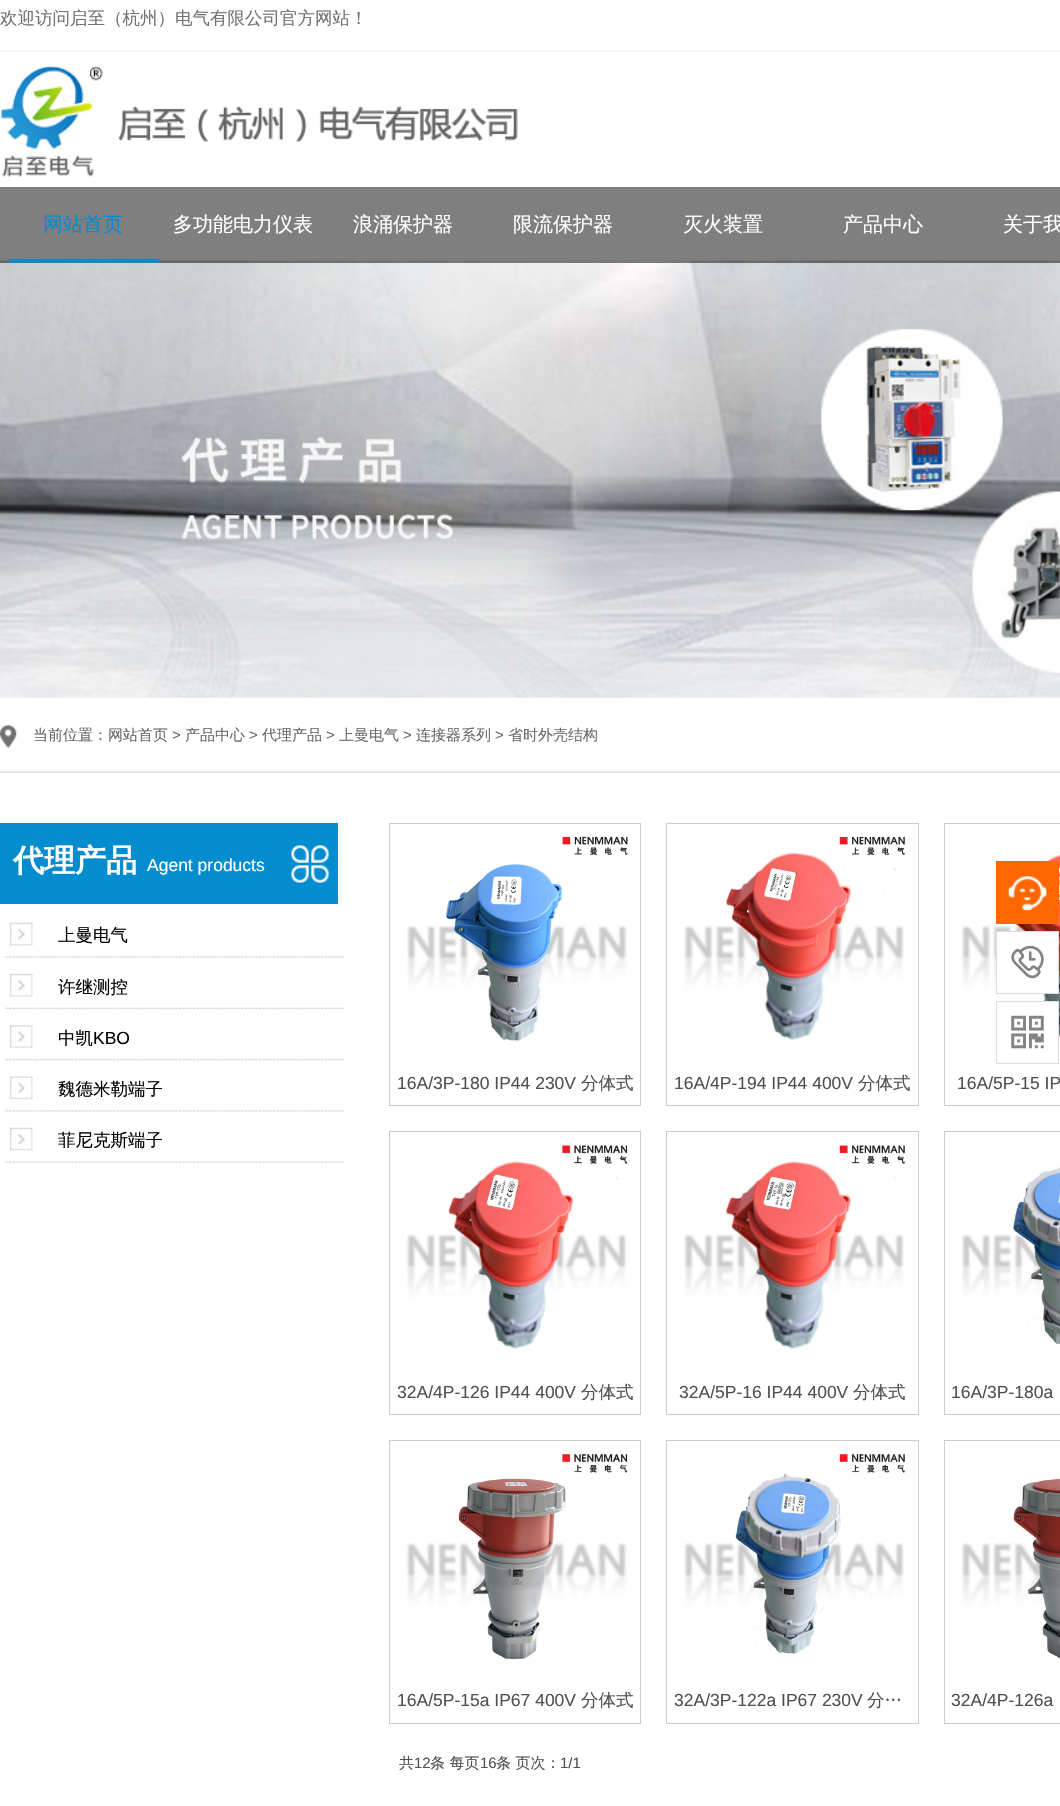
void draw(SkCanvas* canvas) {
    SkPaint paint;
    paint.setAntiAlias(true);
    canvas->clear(0xFFFFFFFF);
    SkFont font1(fontMgr->matchFamilyStyle("WenQuanYi Zen Hei", SkFontStyle(500, SkFontStyle::kNormal_Width, SkFontStyle::kUpright_Slant)), 17.5f);
    font1.setSubpixel(true);
    paint.setColor(0xFF727272);
    canvas->drawString("欢迎访问启至（杭州）电气有限公司官方网站！", 0, 24, font1, paint);
    canvas->drawImageRect(SkImages::DeferredFromEncodedData(SkData::MakeFromFileName("img1.png")), SkRect::MakeXYWH(0, 50, 1060, 2), SkSamplingOptions());
    canvas->drawImageRect(SkImages::DeferredFromEncodedData(SkData::MakeFromFileName("img2.png")), SkRect::MakeXYWH(0, 66, 518, 111), SkSamplingOptions());
    canvas->drawImageRect(SkImages::DeferredFromEncodedData(SkData::MakeFromFileName("img4.png")), SkRect::MakeXYWH(0, 260, 1060, 438), SkSamplingOptions());
    paint.setColor(0x80000000);
    canvas->drawRect(SkRect::MakeXYWH(0, 187, 1060, 76), paint);
    canvas->drawImageRect(SkImages::DeferredFromEncodedData(SkData::MakeFromFileName("img3.png")), SkRect::MakeXYWH(8, 258, 151, 5), SkSamplingOptions());
    SkFont font2(fontMgr->matchFamilyStyle("WenQuanYi Zen Hei", SkFontStyle(500, SkFontStyle::kNormal_Width, SkFontStyle::kUpright_Slant)), 20);
    font2.setSubpixel(true);
    paint.setColor(0xFF038CCE);
    canvas->drawString("网站首页", 43, 231, font2, paint);
    paint.setColor(0xFFFFFFFF);
    canvas->drawString("多功能电力仪表", 173, 231, font2, paint);
    canvas->drawString("浪涌保护器", 353, 231, font2, paint);
    canvas->drawString("限流保护器", 513, 231, font2, paint);
    canvas->drawString("灭火装置", 683, 231, font2, paint);
    canvas->drawString("产品中心", 843, 231, font2, paint);
    canvas->drawString("关于我", 1003, 231, font2, paint);
    canvas->drawImageRect(SkImages::DeferredFromEncodedData(SkData::MakeFromFileName("img5.png")), SkRect::MakeXYWH(0, 725, 17, 23), SkSamplingOptions());
    SkFont font3(fontMgr->matchFamilyStyle("WenQuanYi Zen Hei", SkFontStyle(500, SkFontStyle::kNormal_Width, SkFontStyle::kUpright_Slant)), 15);
    font3.setSubpixel(true);
    paint.setColor(0xFF696969);
    canvas->drawString("当前位置：网站首页", 33, 740, font3, paint);
    SkFont font4(fontMgr->matchFamilyStyle("Liberation Sans", SkFontStyle::Normal()), 15);
    font4.setSubpixel(true);
    canvas->drawString(">", 172, 740, font4, paint);
    canvas->drawString("产品中心", 185, 740, font3, paint);
    canvas->drawString(">", 249, 740, font4, paint);
    canvas->drawString("代理产品", 262, 740, font3, paint);
    canvas->drawString(">", 326, 740, font4, paint);
    canvas->drawString("上曼电气", 339, 740, font3, paint);
    canvas->drawString(">", 403, 740, font4, paint);
    canvas->drawString("连接器系列", 416, 740, font3, paint);
    canvas->drawString(">", 495, 740, font4, paint);
    canvas->drawString("省时外壳结构", 508, 740, font3, paint);
    canvas->drawImageRect(SkImages::DeferredFromEncodedData(SkData::MakeFromFileName("img6.png")), SkRect::MakeXYWH(0, 771, 1060, 2), SkSamplingOptions());
    paint.setColor(0xFF038CCE);
    canvas->drawRect(SkRect::MakeXYWH(0, 823, 338, 81), paint);
    SkFont font5(fontMgr->matchFamilyStyle("WenQuanYi Zen Hei", SkFontStyle::Bold()), 31);
    font5.setSubpixel(true);
    paint.setColor(0xFFFFFFFF);
    canvas->drawString("代理产品", 13, 871, font5, paint);
    SkFont font6(fontMgr->matchFamilyStyle("Liberation Sans", SkFontStyle::Normal()), 17.5f);
    font6.setSubpixel(true);
    canvas->drawString("Agent products", 147, 871, font6, paint);
    canvas->drawImageRect(SkImages::DeferredFromEncodedData(SkData::MakeFromFileName("img7.png")), SkRect::MakeXYWH(291, 845, 38, 38), SkSamplingOptions());
    canvas->drawImageRect(SkImages::DeferredFromEncodedData(SkData::MakeFromFileName("img8.png")), SkRect::MakeXYWH(5, 922, 339, 36), SkSamplingOptions());
    paint.setColor(0xFF000000);
    canvas->drawString("上曼电气", 58, 941, font1, paint);
    canvas->drawImageRect(SkImages::DeferredFromEncodedData(SkData::MakeFromFileName("img9.png")), SkRect::MakeXYWH(5, 973, 339, 37), SkSamplingOptions());
    canvas->drawString("许继测控", 58, 993, font1, paint);
    canvas->drawImageRect(SkImages::DeferredFromEncodedData(SkData::MakeFromFileName("img10.png")), SkRect::MakeXYWH(5, 1025, 339, 36), SkSamplingOptions());
    canvas->drawString("中凯", 58, 1044, font1, paint);
    canvas->drawString("KBO", 93, 1044, font6, paint);
    canvas->drawImageRect(SkImages::DeferredFromEncodedData(SkData::MakeFromFileName("img11.png")), SkRect::MakeXYWH(5, 1076, 339, 36), SkSamplingOptions());
    canvas->drawString("魏德米勒端子", 58, 1095, font1, paint);
    canvas->drawImageRect(SkImages::DeferredFromEncodedData(SkData::MakeFromFileName("img12.png")), SkRect::MakeXYWH(5, 1127, 339, 36), SkSamplingOptions());
    canvas->drawString("菲尼克斯端子", 58, 1146, font1, paint);
    paint.setStyle(SkPaint::kStroke_Style);
    paint.setStrokeWidth(1);
    paint.setColor(0xFFCCCCCC);
    canvas->drawRect(SkRect::MakeXYWH(389.5f, 823.5f, 251, 282), paint);
    canvas->drawImageRect(SkImages::DeferredFromEncodedData(SkData::MakeFromFileName("img13.png")), SkRect::MakeXYWH(407, 836, 221, 205), SkSamplingOptions());
    paint.setStyle(SkPaint::kFill_Style);
    paint.setColor(0xFF505050);
    canvas->drawString("16A/3P-180 IP44 230V", 397, 1089, font6, paint);
    canvas->drawString("分体式", 581, 1089, font1, paint);
    paint.setStyle(SkPaint::kStroke_Style);
    paint.setColor(0xFFCCCCCC);
    canvas->drawRect(SkRect::MakeXYWH(666.5f, 823.5f, 252, 282), paint);
    canvas->drawImageRect(SkImages::DeferredFromEncodedData(SkData::MakeFromFileName("img14.png")), SkRect::MakeXYWH(684, 836, 221, 205), SkSamplingOptions());
    paint.setStyle(SkPaint::kFill_Style);
    paint.setColor(0xFF505050);
    canvas->drawString("16A/4P-194 IP44 400V", 674, 1089, font6, paint);
    canvas->drawString("分体式", 858, 1089, font1, paint);
    paint.setStyle(SkPaint::kStroke_Style);
    paint.setColor(0xFFCCCCCC);
    canvas->drawRect(SkRect::MakeXYWH(944.5f, 823.5f, 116, 282), paint);
    canvas->drawImageRect(SkImages::DeferredFromEncodedData(SkData::MakeFromFileName("img15.png")), SkRect::MakeXYWH(961, 854, 99, 184), SkSamplingOptions());
    paint.setStyle(SkPaint::kFill_Style);
    paint.setColor(0xFF505050);
    canvas->drawString("16A/5P-15 IP", 957, 1089, font6, paint);
    paint.setStyle(SkPaint::kStroke_Style);
    paint.setColor(0xFFCCCCCC);
    canvas->drawRect(SkRect::MakeXYWH(389.5f, 1131.5f, 251, 283), paint);
    canvas->drawImageRect(SkImages::DeferredFromEncodedData(SkData::MakeFromFileName("img16.png")), SkRect::MakeXYWH(406, 1145, 222, 205), SkSamplingOptions());
    paint.setStyle(SkPaint::kFill_Style);
    paint.setColor(0xFF505050);
    canvas->drawString("32A/4P-126 IP44 400V", 397, 1398, font6, paint);
    canvas->drawString("分体式", 581, 1398, font1, paint);
    paint.setStyle(SkPaint::kStroke_Style);
    paint.setColor(0xFFCCCCCC);
    canvas->drawRect(SkRect::MakeXYWH(666.5f, 1131.5f, 252, 283), paint);
    canvas->drawImageRect(SkImages::DeferredFromEncodedData(SkData::MakeFromFileName("img17.png")), SkRect::MakeXYWH(684, 1145, 221, 205), SkSamplingOptions());
    paint.setStyle(SkPaint::kFill_Style);
    paint.setColor(0xFF505050);
    canvas->drawString("32A/5P-16 IP44 400V", 679, 1398, font6, paint);
    canvas->drawString("分体式", 853, 1398, font1, paint);
    paint.setStyle(SkPaint::kStroke_Style);
    paint.setColor(0xFFCCCCCC);
    canvas->drawRect(SkRect::MakeXYWH(944.5f, 1131.5f, 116, 283), paint);
    canvas->drawImageRect(SkImages::DeferredFromEncodedData(SkData::MakeFromFileName("img18.png")), SkRect::MakeXYWH(961, 1167, 99, 178), SkSamplingOptions());
    paint.setStyle(SkPaint::kFill_Style);
    paint.setColor(0xFF505050);
    canvas->drawString("16A/3P-180a", 951, 1398, font6, paint);
    paint.setStyle(SkPaint::kStroke_Style);
    paint.setColor(0xFFCCCCCC);
    canvas->drawRect(SkRect::MakeXYWH(389.5f, 1440.5f, 251, 283), paint);
    canvas->drawImageRect(SkImages::DeferredFromEncodedData(SkData::MakeFromFileName("img19.png")), SkRect::MakeXYWH(406, 1454, 222, 206), SkSamplingOptions());
    paint.setStyle(SkPaint::kFill_Style);
    paint.setColor(0xFF505050);
    canvas->drawString("16A/5P-15a IP67 400V", 397, 1706, font6, paint);
    canvas->drawString("分体式", 581, 1706, font1, paint);
    paint.setStyle(SkPaint::kStroke_Style);
    paint.setColor(0xFFCCCCCC);
    canvas->drawRect(SkRect::MakeXYWH(666.5f, 1440.5f, 252, 283), paint);
    canvas->drawImageRect(SkImages::DeferredFromEncodedData(SkData::MakeFromFileName("img20.png")), SkRect::MakeXYWH(684, 1454, 221, 200), SkSamplingOptions());
    paint.setStyle(SkPaint::kFill_Style);
    paint.setColor(0xFF505050);
    canvas->drawString("32A/3P-122a IP67 230V", 674, 1706, font6, paint);
    canvas->drawString("分…", 867, 1706, font1, paint);
    paint.setStyle(SkPaint::kStroke_Style);
    paint.setColor(0xFFCCCCCC);
    canvas->drawRect(SkRect::MakeXYWH(944.5f, 1440.5f, 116, 283), paint);
    canvas->drawImageRect(SkImages::DeferredFromEncodedData(SkData::MakeFromFileName("img21.png")), SkRect::MakeXYWH(961, 1478, 99, 181), SkSamplingOptions());
    paint.setStyle(SkPaint::kFill_Style);
    paint.setColor(0xFF505050);
    canvas->drawString("32A/4P-126a", 951, 1706, font6, paint);
    canvas->drawString("共", 399, 1768, font3, paint);
    canvas->drawString("12", 414, 1768, font4, paint);
    canvas->drawString("条 每页", 430, 1768, font3, paint);
    canvas->drawString("16", 480, 1768, font4, paint);
    canvas->drawString("条 页次：", 496, 1768, font3, paint);
    canvas->drawString("1/1", 560, 1768, font4, paint);
    paint.setColor(0xFFFF6800);
    canvas->drawRect(SkRect::MakeXYWH(996, 861, 63, 63), paint);
    canvas->drawImageRect(SkImages::DeferredFromEncodedData(SkData::MakeFromFileName("img22.png")), SkRect::MakeXYWH(1008, 876, 39, 35), SkSamplingOptions());
    paint.setColor(0xFFFFFFFF);
    canvas->drawRect(SkRect::MakeXYWH(996.5f, 931.5f, 62, 62), paint);
    paint.setStyle(SkPaint::kStroke_Style);
    paint.setColor(0xFFDDDDDD);
    canvas->drawRect(SkRect::MakeXYWH(996.5f, 931.5f, 62, 62), paint);
    canvas->drawImageRect(SkImages::DeferredFromEncodedData(SkData::MakeFromFileName("img23.png")), SkRect::MakeXYWH(1011, 945, 33, 34), SkSamplingOptions());
    paint.setStyle(SkPaint::kFill_Style);
    paint.setColor(0xFFFFFFFF);
    canvas->drawRect(SkRect::MakeXYWH(1042, 1002, 16, 34), paint);
    paint.setStyle(SkPaint::kStroke_Style);
    paint.setColor(0xFFDDDDDD);
    canvas->drawRect(SkRect::MakeXYWH(996.5f, 1001.5f, 62, 62), paint);
    canvas->drawImageRect(SkImages::DeferredFromEncodedData(SkData::MakeFromFileName("img24.png")), SkRect::MakeXYWH(1011, 1015, 33, 34), SkSamplingOptions());
}
